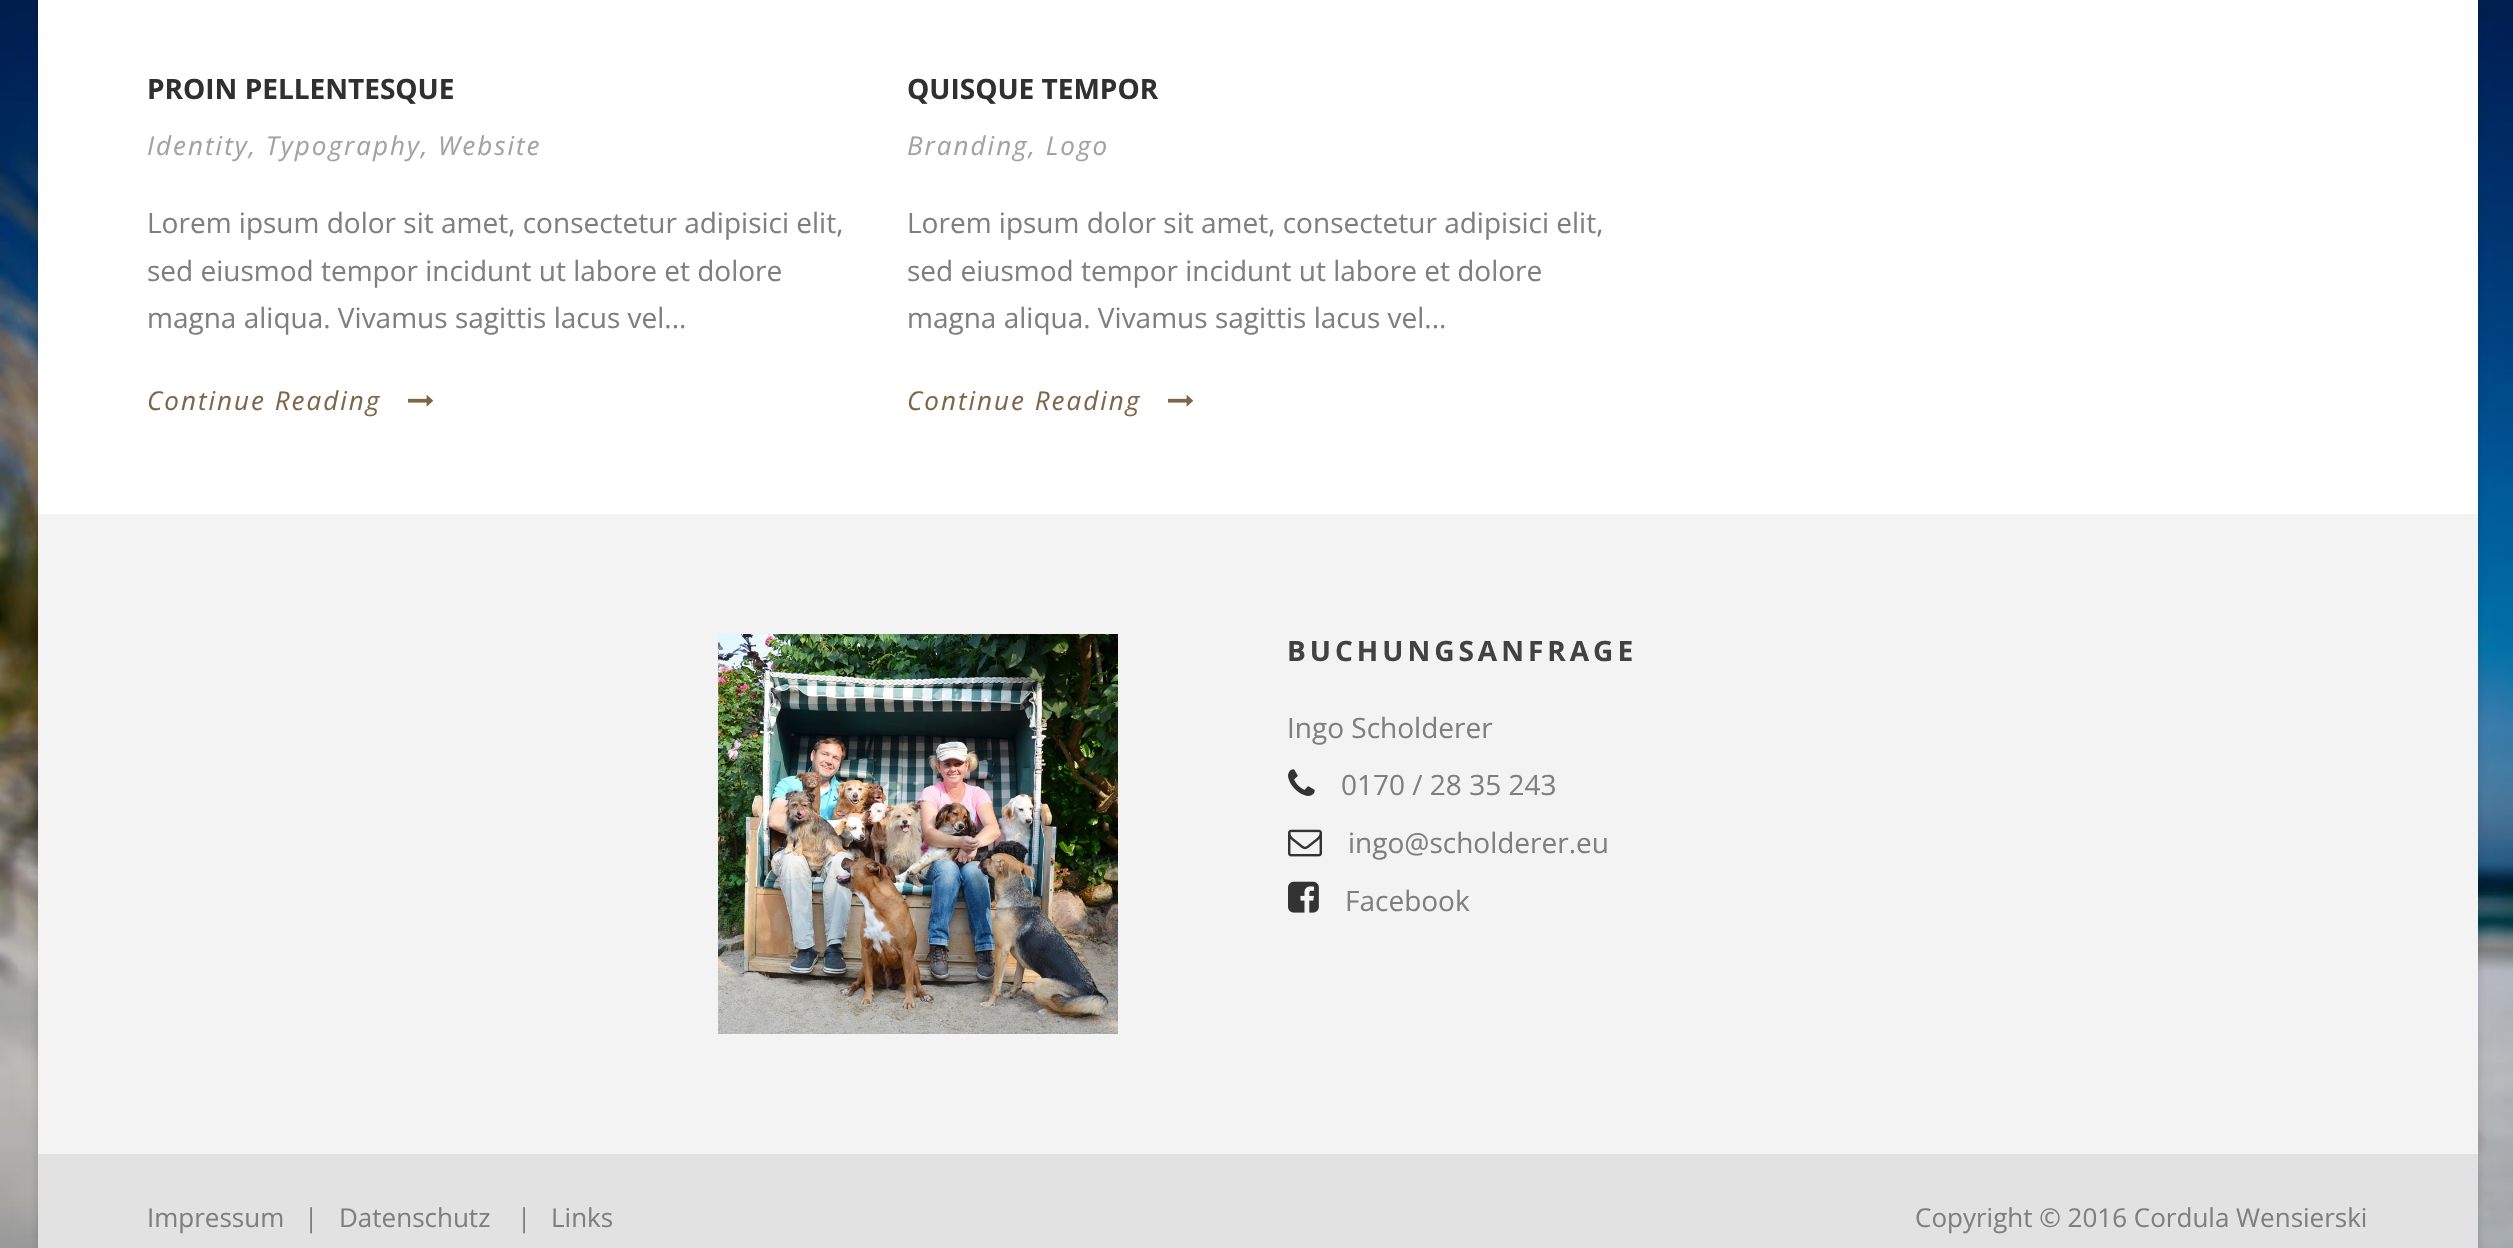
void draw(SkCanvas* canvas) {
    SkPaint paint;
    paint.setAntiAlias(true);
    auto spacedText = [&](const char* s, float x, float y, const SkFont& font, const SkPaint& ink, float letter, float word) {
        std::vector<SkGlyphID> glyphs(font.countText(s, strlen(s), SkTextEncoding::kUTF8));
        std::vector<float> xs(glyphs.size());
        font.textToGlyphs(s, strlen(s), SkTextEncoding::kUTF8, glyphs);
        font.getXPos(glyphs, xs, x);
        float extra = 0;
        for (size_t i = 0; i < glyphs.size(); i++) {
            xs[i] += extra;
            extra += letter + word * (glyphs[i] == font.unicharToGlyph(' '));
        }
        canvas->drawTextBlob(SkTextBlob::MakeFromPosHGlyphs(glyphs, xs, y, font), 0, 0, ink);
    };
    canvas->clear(0xFFFFFFFF);
    canvas->drawImageRect(SkImages::DeferredFromEncodedData(SkData::MakeFromFileName("img1.png")), SkRect::MakeXYWH(0, 0, 2513, 1248), SkSamplingOptions());
    paint.setColor(0x26000000);
    paint.setMaskFilter(SkMaskFilter::MakeBlur(kNormal_SkBlurStyle, 5));
    canvas->drawRect(SkRect::MakeXYWH(38, -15, 2440, 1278), paint);
    paint.setMaskFilter(nullptr);
    paint.setColor(0xFFFFFFFF);
    canvas->drawRect(SkRect::MakeXYWH(38, 0, 2440, 514), paint);
    SkFont font1(fontMgr->matchFamilyStyle("Open Sans", SkFontStyle::Bold()), 28);
    font1.setSubpixel(true);
    paint.setColor(0xFF303030);
    canvas->drawString("PROIN PELLENTESQUE", 147, 99, font1, paint);
    SkFont font2(fontMgr->matchFamilyStyle("Open Sans", SkFontStyle::Italic()), 26);
    font2.setSubpixel(true);
    paint.setColor(0xFFA2A2A2);
    spacedText("Identity, Typography, Website", 147, 155, font2, paint, 2, 0);
    SkFont font3(fontMgr->matchFamilyStyle("Open Sans", SkFontStyle::Normal()), 28);
    font3.setSubpixel(true);
    paint.setColor(0xFF7F7F7F);
    canvas->drawString("Lorem ipsum dolor sit amet, consectetur adipisici elit,", 147, 233, font3, paint);
    canvas->drawString("sed eiusmod tempor incidunt ut labore et dolore", 147, 281, font3, paint);
    canvas->drawString("magna aliqua. Vivamus sagittis lacus vel...", 147, 328, font3, paint);
    paint.setColor(0xFF7E6648);
    spacedText("Continue Reading", 147, 410, font2, paint, 2, 0);
    canvas->drawImageRect(SkImages::DeferredFromEncodedData(SkData::MakeFromFileName("img2.png")), SkRect::MakeXYWH(408, 395, 25, 12), SkSamplingOptions());
    paint.setColor(0xFF303030);
    canvas->drawString("QUISQUE TEMPOR", 907, 99, font1, paint);
    paint.setColor(0xFFA2A2A2);
    spacedText("Branding, Logo", 907, 155, font2, paint, 2, 0);
    paint.setColor(0xFF7F7F7F);
    canvas->drawString("Lorem ipsum dolor sit amet, consectetur adipisici elit,", 907, 233, font3, paint);
    canvas->drawString("sed eiusmod tempor incidunt ut labore et dolore", 907, 281, font3, paint);
    canvas->drawString("magna aliqua. Vivamus sagittis lacus vel...", 907, 328, font3, paint);
    paint.setColor(0xFF7E6648);
    spacedText("Continue Reading", 907, 410, font2, paint, 2, 0);
    canvas->drawImageRect(SkImages::DeferredFromEncodedData(SkData::MakeFromFileName("img2.png")), SkRect::MakeXYWH(1168, 395, 25, 12), SkSamplingOptions());
    paint.setColor(0xFFF3F3F3);
    canvas->drawRect(SkRect::MakeXYWH(38, 514, 2440, 640), paint);
    canvas->drawImageRect(SkImages::DeferredFromEncodedData(SkData::MakeFromFileName("img3.png")), SkRect::MakeXYWH(718, 634, 400, 400), SkSamplingOptions());
    paint.setColor(0xFF424242);
    spacedText("BUCHUNGSANFRAGE", 1287, 661, font1, paint, 4, 0);
    paint.setColor(0xFF7F7F7F);
    canvas->drawString("Ingo Scholderer", 1287, 738, font3, paint);
    canvas->drawImageRect(SkImages::DeferredFromEncodedData(SkData::MakeFromFileName("img4.png")), SkRect::MakeXYWH(1288, 769, 27, 27), SkSamplingOptions());
    canvas->drawString("0170 / 28 35 243", 1341, 795, font3, paint);
    canvas->drawImageRect(SkImages::DeferredFromEncodedData(SkData::MakeFromFileName("img5.png")), SkRect::MakeXYWH(1288, 829, 34, 28), SkSamplingOptions());
    canvas->drawString("ingo@scholderer.eu", 1348, 853, font3, paint);
    canvas->drawImageRect(SkImages::DeferredFromEncodedData(SkData::MakeFromFileName("img6.png")), SkRect::MakeXYWH(1288, 881, 31, 32), SkSamplingOptions());
    canvas->drawString("Facebook", 1345, 911, font3, paint);
    paint.setColor(0xFFE2E2E2);
    canvas->drawRect(SkRect::MakeXYWH(38, 1154, 2440, 94), paint);
    SkFont font4(fontMgr->matchFamilyStyle("Open Sans", SkFontStyle::Normal()), 26);
    font4.setSubpixel(true);
    paint.setColor(0xFF7F7F7F);
    canvas->drawString("Impressum", 147, 1227, font4, paint);
    canvas->drawString("|", 304, 1227, font4, paint);
    canvas->drawString("Datenschutz", 339, 1227, font4, paint);
    canvas->drawString("|", 517, 1227, font4, paint);
    canvas->drawString("Links", 551, 1227, font4, paint);
    canvas->drawString("Copyright © 2016 Cordula Wensierski", 1915, 1227, font4, paint);
}
